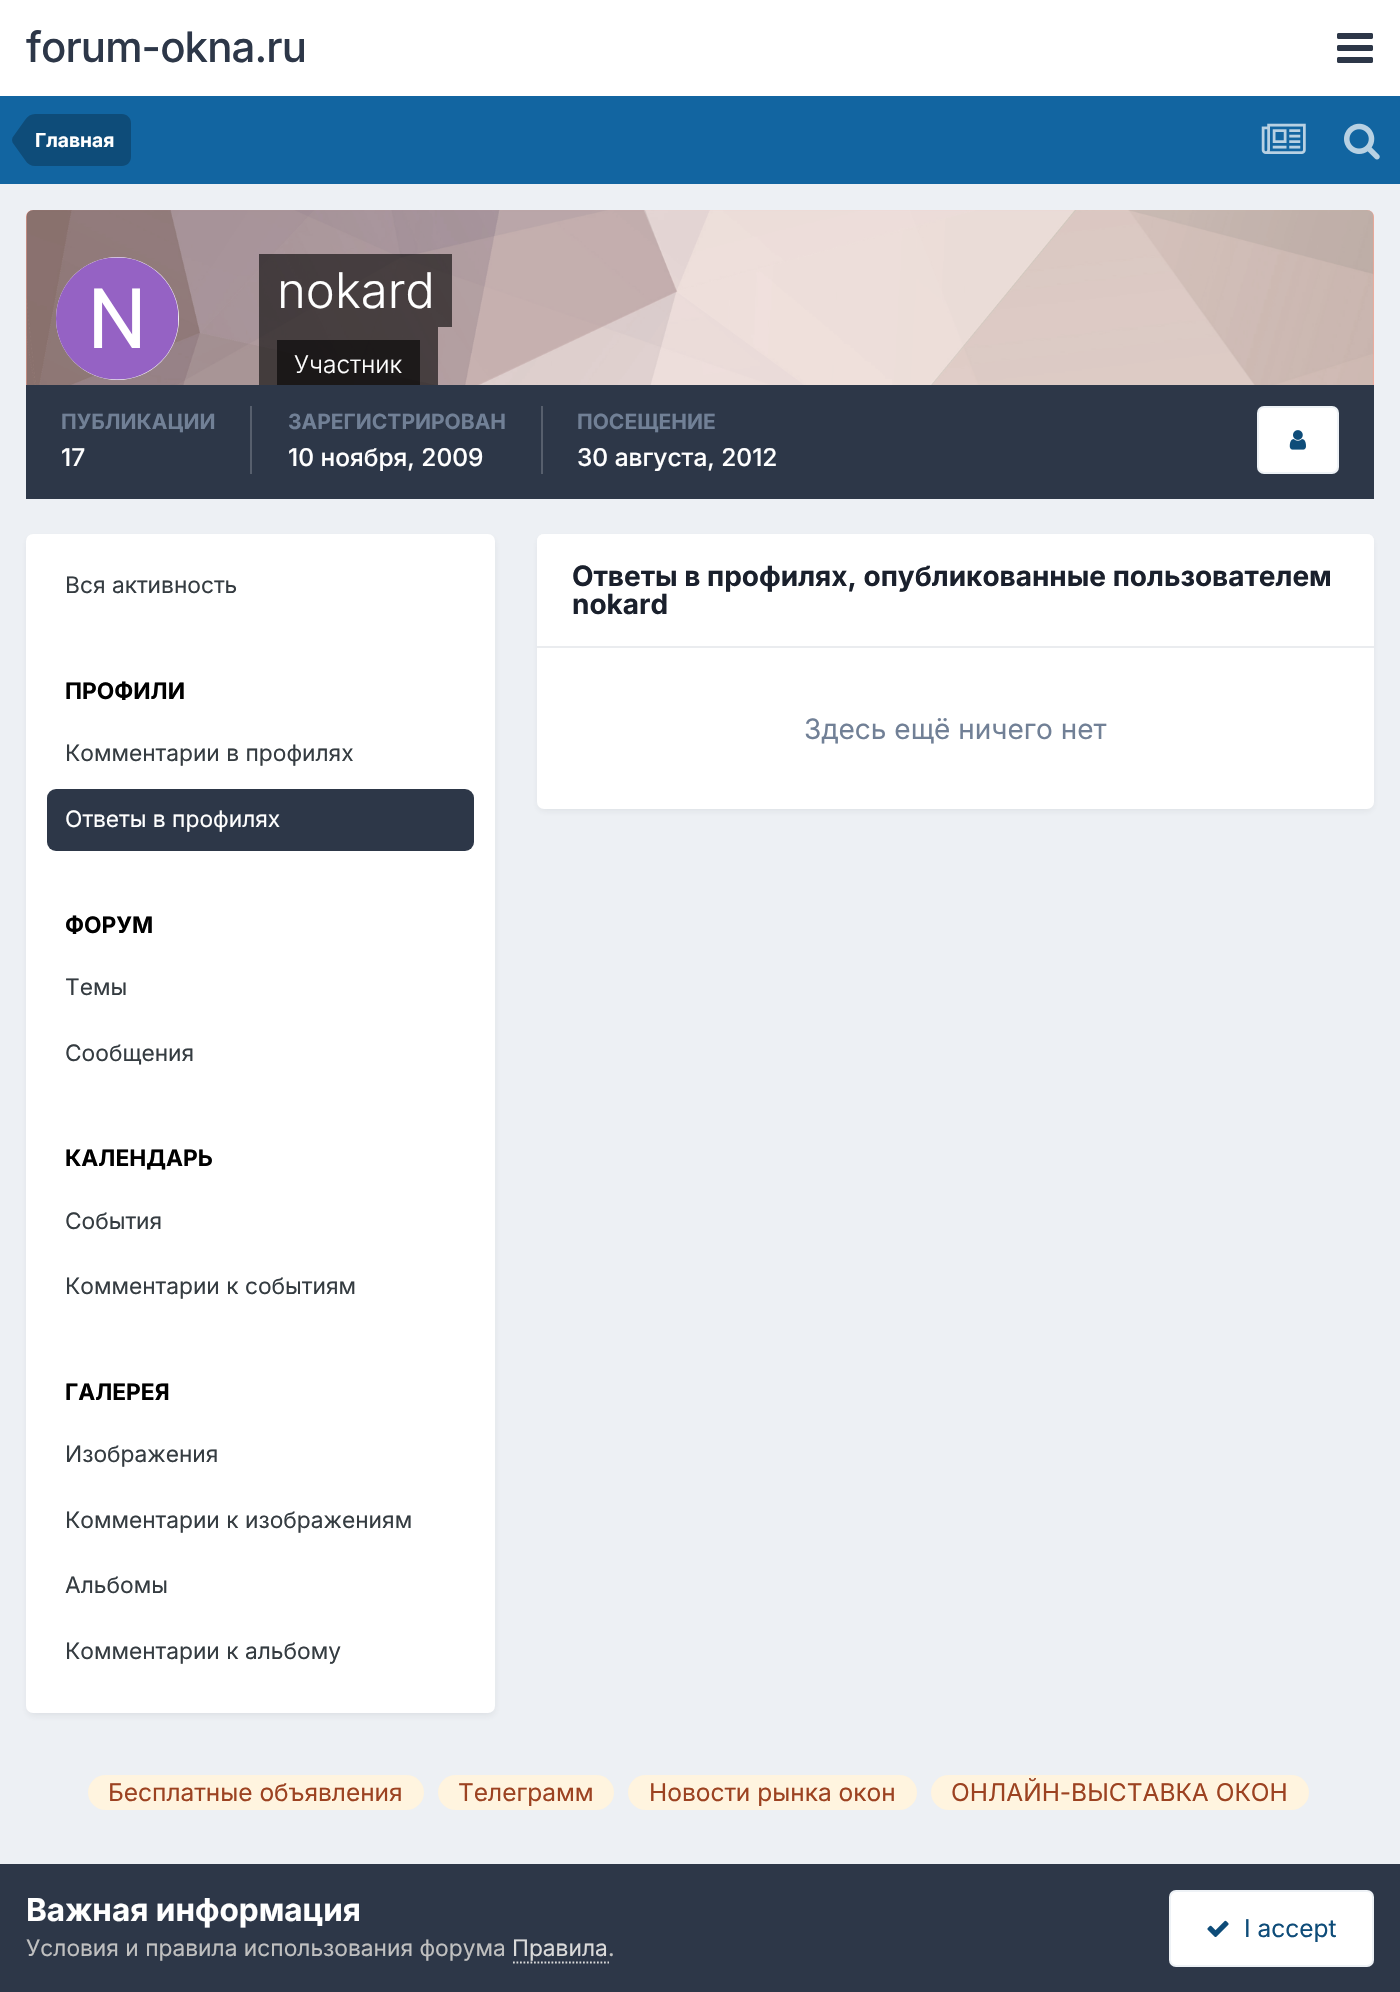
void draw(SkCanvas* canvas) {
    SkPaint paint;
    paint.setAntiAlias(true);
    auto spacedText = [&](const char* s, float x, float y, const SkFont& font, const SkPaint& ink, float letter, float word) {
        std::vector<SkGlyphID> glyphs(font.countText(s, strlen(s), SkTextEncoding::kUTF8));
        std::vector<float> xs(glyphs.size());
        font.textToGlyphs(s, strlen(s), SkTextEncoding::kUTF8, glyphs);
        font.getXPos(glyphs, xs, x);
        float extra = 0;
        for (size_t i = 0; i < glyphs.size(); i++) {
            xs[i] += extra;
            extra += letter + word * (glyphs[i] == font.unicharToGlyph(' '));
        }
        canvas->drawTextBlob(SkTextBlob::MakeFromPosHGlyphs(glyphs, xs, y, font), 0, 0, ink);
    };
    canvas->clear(0xFFEDF0F4);
    paint.setColor(0xFFFFFFFF);
    canvas->drawRect(SkRect::MakeXYWH(0, 0, 1400, 96), paint);
    SkFont font1(fontMgr->matchFamilyStyle("Inter", SkFontStyle(500, SkFontStyle::kNormal_Width, SkFontStyle::kUpright_Slant)), 42);
    font1.setSubpixel(true);
    paint.setColor(0xFF2D3748);
    spacedText("forum-okna.ru", 26, 62, font1, paint, -0.9f, 0);
    canvas->drawImageRect(SkImages::DeferredFromEncodedData(SkData::MakeFromFileName("img1.png")), SkRect::MakeXYWH(1337, 33, 36, 30), SkSamplingOptions());
    paint.setColor(0xFF1265A1);
    canvas->drawRect(SkRect::MakeXYWH(0, 96, 1400, 88), paint);
    paint.setColor(0xFF0E4C79);
    canvas->drawPath(SkPathBuilder().moveTo(35, 114).lineTo(122, 114).cubicTo(127, 114, 131, 118, 131, 123).lineTo(131, 157).cubicTo(131, 162, 127, 166, 122, 166).lineTo(35, 166).close().detach(), paint);
    canvas->drawPath(SkPathBuilder().moveTo(35, 140).lineTo(35, 166).cubicTo(31, 166, 27.5f, 164, 25, 160).lineTo(12.5f, 142.5f).lineTo(12, 140).close().moveTo(35, 140).lineTo(12, 140).lineTo(12.5f, 137.5f).lineTo(25, 120).cubicTo(27.5f, 116, 31, 114, 35, 114).close().detach(), paint);
    SkFont font2(fontMgr->matchFamilyStyle("Inter", SkFontStyle::Bold()), 19.25f);
    font2.setSubpixel(true);
    paint.setColor(0xFFFFFFFF);
    canvas->drawString("Главная", 35, 147, font2, paint);
    canvas->drawImageRect(SkImages::DeferredFromEncodedData(SkData::MakeFromFileName("img2.png")), SkRect::MakeXYWH(1261, 123, 45, 31), SkSamplingOptions());
    canvas->drawImageRect(SkImages::DeferredFromEncodedData(SkData::MakeFromFileName("img3.png")), SkRect::MakeXYWH(1344, 123, 36, 37), SkSamplingOptions());
    paint.setColor(0xFFFFA899);
    canvas->drawPath(SkPathBuilder().moveTo(33, 210).lineTo(1367, 210).cubicTo(1371, 210, 1374, 213, 1374, 217).lineTo(1374, 385).lineTo(26, 385).lineTo(26, 217).cubicTo(26, 213, 29, 210, 33, 210).close().detach(), paint);
    canvas->drawImageRect(SkImages::DeferredFromEncodedData(SkData::MakeFromFileName("img4.png")), SkRect::MakeXYWH(26, 210, 1348, 175), SkSamplingOptions());
    paint.setColor(0xFFFFFFFF);
    canvas->drawCircle(117.5f, 318.5f, 61.5f, paint);
    canvas->drawImageRect(SkImages::DeferredFromEncodedData(SkData::MakeFromFileName("img5.png")), SkRect::MakeXYWH(56, 257, 123, 123), SkSamplingOptions());
    paint.setColor(0x99000000);
    canvas->drawRect(SkRect::MakeXYWH(259, 254, 193, 73), paint);
    SkFont font3(fontMgr->matchFamilyStyle("Inter", SkFontStyle(300, SkFontStyle::kNormal_Width, SkFontStyle::kUpright_Slant)), 49);
    font3.setSubpixel(true);
    paint.setColor(0xFFFFFFFF);
    canvas->drawString("nokard", 277, 308, font3, paint);
    paint.setColor(0x99000000);
    canvas->drawRect(SkRect::MakeXYWH(259, 327, 179, 58), paint);
    canvas->drawRect(SkRect::MakeXYWH(277, 340, 143, 45), paint);
    SkFont font4(fontMgr->matchFamilyStyle("Inter", SkFontStyle(300, SkFontStyle::kNormal_Width, SkFontStyle::kUpright_Slant)), 24.5f);
    font4.setSubpixel(true);
    paint.setColor(0xFFFFFFFF);
    canvas->drawString("Участник", 294, 373, font4, paint);
    paint.setColor(0xFF2D3748);
    canvas->drawRect(SkRect::MakeXYWH(26, 385, 1348, 114), paint);
    paint.setColor(0xFF575F6D);
    canvas->drawRect(SkRect::MakeXYWH(250, 406, 2, 68), paint);
    SkFont font5(fontMgr->matchFamilyStyle("Inter", SkFontStyle::Bold()), 21);
    font5.setSubpixel(true);
    paint.setColor(0xFF718096);
    canvas->drawString("ПУБЛИКАЦИИ", 61, 429, font5, paint);
    SkFont font6(fontMgr->matchFamilyStyle("Inter", SkFontStyle(500, SkFontStyle::kNormal_Width, SkFontStyle::kUpright_Slant)), 24.5f);
    font6.setSubpixel(true);
    paint.setColor(0xFFFFFFFF);
    canvas->drawString("17", 61, 466, font6, paint);
    paint.setColor(0xFF575F6D);
    canvas->drawRect(SkRect::MakeXYWH(541, 406, 2, 68), paint);
    paint.setColor(0xFF718096);
    canvas->drawString("ЗАРЕГИСТРИРОВАН", 288, 429, font5, paint);
    paint.setColor(0xFFFFFFFF);
    canvas->drawString("10 ноября, 2009", 288, 466, font6, paint);
    paint.setColor(0xFF718096);
    canvas->drawString("ПОСЕЩЕНИЕ", 577, 429, font5, paint);
    paint.setColor(0xFFFFFFFF);
    canvas->drawString("30 августа, 2012", 577, 466, font6, paint);
    canvas->drawRoundRect(SkRect::MakeXYWH(1257, 406, 82, 68), 7, 7, paint);
    paint.setStyle(SkPaint::kStroke_Style);
    paint.setStrokeWidth(2);
    paint.setColor(0x120E4C79);
    canvas->drawRoundRect(SkRect::MakeXYWH(1258, 407, 80, 66), 6, 6, paint);
    canvas->drawImageRect(SkImages::DeferredFromEncodedData(SkData::MakeFromFileName("img6.png")), SkRect::MakeXYWH(1289, 430, 17, 20), SkSamplingOptions());
    paint.setStyle(SkPaint::kFill_Style);
    paint.setColor(0x1A2D3748);
    paint.setMaskFilter(SkMaskFilter::MakeBlur(kNormal_SkBlurStyle, 3.5f));
    canvas->drawRoundRect(SkRect::MakeXYWH(28, 539, 466, 1176), 5, 5, paint);
    paint.setMaskFilter(nullptr);
    paint.setColor(0xFFFFFFFF);
    canvas->drawRoundRect(SkRect::MakeXYWH(26, 534, 469, 1179), 7, 7, paint);
    SkFont font7(fontMgr->matchFamilyStyle("Inter", SkFontStyle::Normal()), 22.75f);
    font7.setSubpixel(true);
    paint.setColor(0xFF353C41);
    canvas->drawString("Вся активность", 65, 593, font7, paint);
    SkFont font8(fontMgr->matchFamilyStyle("Inter", SkFontStyle::Bold()), 22.75f);
    font8.setSubpixel(true);
    paint.setColor(0xFF000000);
    canvas->drawString("ПРОФИЛИ", 65, 699, font8, paint);
    paint.setColor(0xFF353C41);
    canvas->drawString("Комментарии в профилях", 65, 761, font7, paint);
    paint.setColor(0xFF2D3748);
    canvas->drawRoundRect(SkRect::MakeXYWH(47, 789, 427, 62), 9, 9, paint);
    paint.setColor(0xFFFFFFFF);
    canvas->drawString("Ответы в профилях", 65, 827, font7, paint);
    paint.setColor(0xFF000000);
    canvas->drawString("ФОРУМ", 65, 933, font8, paint);
    paint.setColor(0xFF353C41);
    canvas->drawString("Темы", 65, 995, font7, paint);
    canvas->drawString("Сообщения", 65, 1061, font7, paint);
    paint.setColor(0xFF000000);
    canvas->drawString("КАЛЕНДАРЬ", 65, 1166, font8, paint);
    paint.setColor(0xFF353C41);
    canvas->drawString("События", 65, 1229, font7, paint);
    canvas->drawString("Комментарии к событиям", 65, 1294, font7, paint);
    paint.setColor(0xFF000000);
    canvas->drawString("ГАЛЕРЕЯ", 65, 1400, font8, paint);
    paint.setColor(0xFF353C41);
    canvas->drawString("Изображения", 65, 1462, font7, paint);
    canvas->drawString("Комментарии к изображениям", 65, 1528, font7, paint);
    canvas->drawString("Альбомы", 65, 1593, font7, paint);
    canvas->drawString("Комментарии к альбому", 65, 1659, font7, paint);
    paint.setColor(0x1A2D3748);
    paint.setMaskFilter(SkMaskFilter::MakeBlur(kNormal_SkBlurStyle, 3.5f));
    canvas->drawRoundRect(SkRect::MakeXYWH(539, 539, 833, 271), 5, 5, paint);
    paint.setMaskFilter(nullptr);
    paint.setColor(0xFFFFFFFF);
    canvas->drawRoundRect(SkRect::MakeXYWH(537, 534, 837, 275), 7, 7, paint);
    canvas->drawPath(SkPathBuilder().moveTo(544, 534).lineTo(1367, 534).cubicTo(1371, 534, 1374, 537, 1374, 541).lineTo(1374, 648).lineTo(537, 648).lineTo(537, 541).cubicTo(537, 537, 540, 534, 544, 534).close().detach(), paint);
    paint.setColor(0xFFEAECEF);
    canvas->drawRect(SkRect::MakeXYWH(537, 646, 837, 2), paint);
    SkFont font9(fontMgr->matchFamilyStyle("Inter", SkFontStyle::Bold()), 28);
    font9.setSubpixel(true);
    paint.setColor(0xFF1A202C);
    canvas->drawString("Ответы в профилях, опубликованные пользователем", 572, 586, font9, paint);
    canvas->drawString("nokard", 572, 614, font9, paint);
    SkFont font10(fontMgr->matchFamilyStyle("Inter", SkFontStyle::Normal()), 28);
    font10.setSubpixel(true);
    paint.setColor(0xFF718096);
    canvas->drawString("Здесь ещё ничего нет", 804, 739, font10, paint);
    paint.setColor(0xFFFFF4DF);
    canvas->drawRoundRect(SkRect::MakeXYWH(88, 1775, 336, 35), 17.5f, 17.5f, paint);
    SkFont font11(fontMgr->matchFamilyStyle("Inter", SkFontStyle::Normal()), 24.5f);
    font11.setSubpixel(true);
    paint.setColor(0xFF9C4221);
    canvas->drawString("Бесплатные объявления", 108, 1801, font11, paint);
    paint.setColor(0xFFFFF4DF);
    canvas->drawRoundRect(SkRect::MakeXYWH(438, 1775, 176, 35), 17.5f, 17.5f, paint);
    paint.setColor(0xFF9C4221);
    canvas->drawString("Телеграмм", 458, 1801, font11, paint);
    paint.setColor(0xFFFFF4DF);
    canvas->drawRoundRect(SkRect::MakeXYWH(628, 1775, 289, 35), 17.5f, 17.5f, paint);
    paint.setColor(0xFF9C4221);
    canvas->drawString("Новости рынка окон", 649, 1801, font11, paint);
    paint.setColor(0xFFFFF4DF);
    canvas->drawRoundRect(SkRect::MakeXYWH(931, 1775, 378, 35), 17.5f, 17.5f, paint);
    paint.setColor(0xFF9C4221);
    canvas->drawString("ОНЛАЙН-ВЫСТАВКА ОКОН", 951, 1801, font11, paint);
    paint.setColor(0xFF2D3748);
    canvas->drawRect(SkRect::MakeXYWH(0, 1864, 1400, 128), paint);
    SkFont font12(fontMgr->matchFamilyStyle("Inter", SkFontStyle::Bold()), 31.5f);
    font12.setSubpixel(true);
    paint.setColor(0xFFFFFFFF);
    canvas->drawString("Важная информация", 26, 1921, font12, paint);
    paint.setColor(0xFFC0C0C0);
    canvas->drawString("Условия и правила использования форума", 26, 1956, font7, paint);
    paint.setColor(0xFFDADADA);
    canvas->drawString("Правила", 512, 1956, font7, paint);
    paint.setStyle(SkPaint::kStroke_Style);
    paint.setStrokeWidth(1.8f);
    paint.setPathEffect(SkDashPathEffect::Make({{1.75f, 1.75f}}, 0));
    canvas->drawPath(SkPathBuilder().moveTo(513, 1962.5f).lineTo(609, 1962.5f).detach(), paint);
    paint.setPathEffect(nullptr);
    paint.setStyle(SkPaint::kFill_Style);
    paint.setColor(0xFFC0C0C0);
    canvas->drawString(".", 608, 1956, font7, paint);
    paint.setColor(0xFFFFFFFF);
    canvas->drawRoundRect(SkRect::MakeXYWH(1169, 1890, 205, 77), 7, 7, paint);
    paint.setStyle(SkPaint::kStroke_Style);
    paint.setStrokeWidth(2);
    paint.setColor(0x120E4C79);
    canvas->drawRoundRect(SkRect::MakeXYWH(1170, 1891, 203, 75), 6, 6, paint);
    canvas->drawImageRect(SkImages::DeferredFromEncodedData(SkData::MakeFromFileName("img7.png")), SkRect::MakeXYWH(1207, 1920, 22, 17), SkSamplingOptions());
    paint.setStyle(SkPaint::kFill_Style);
    paint.setColor(0xFF0E4C79);
    canvas->drawString("I accept", 1244, 1937, font11, paint);
}
